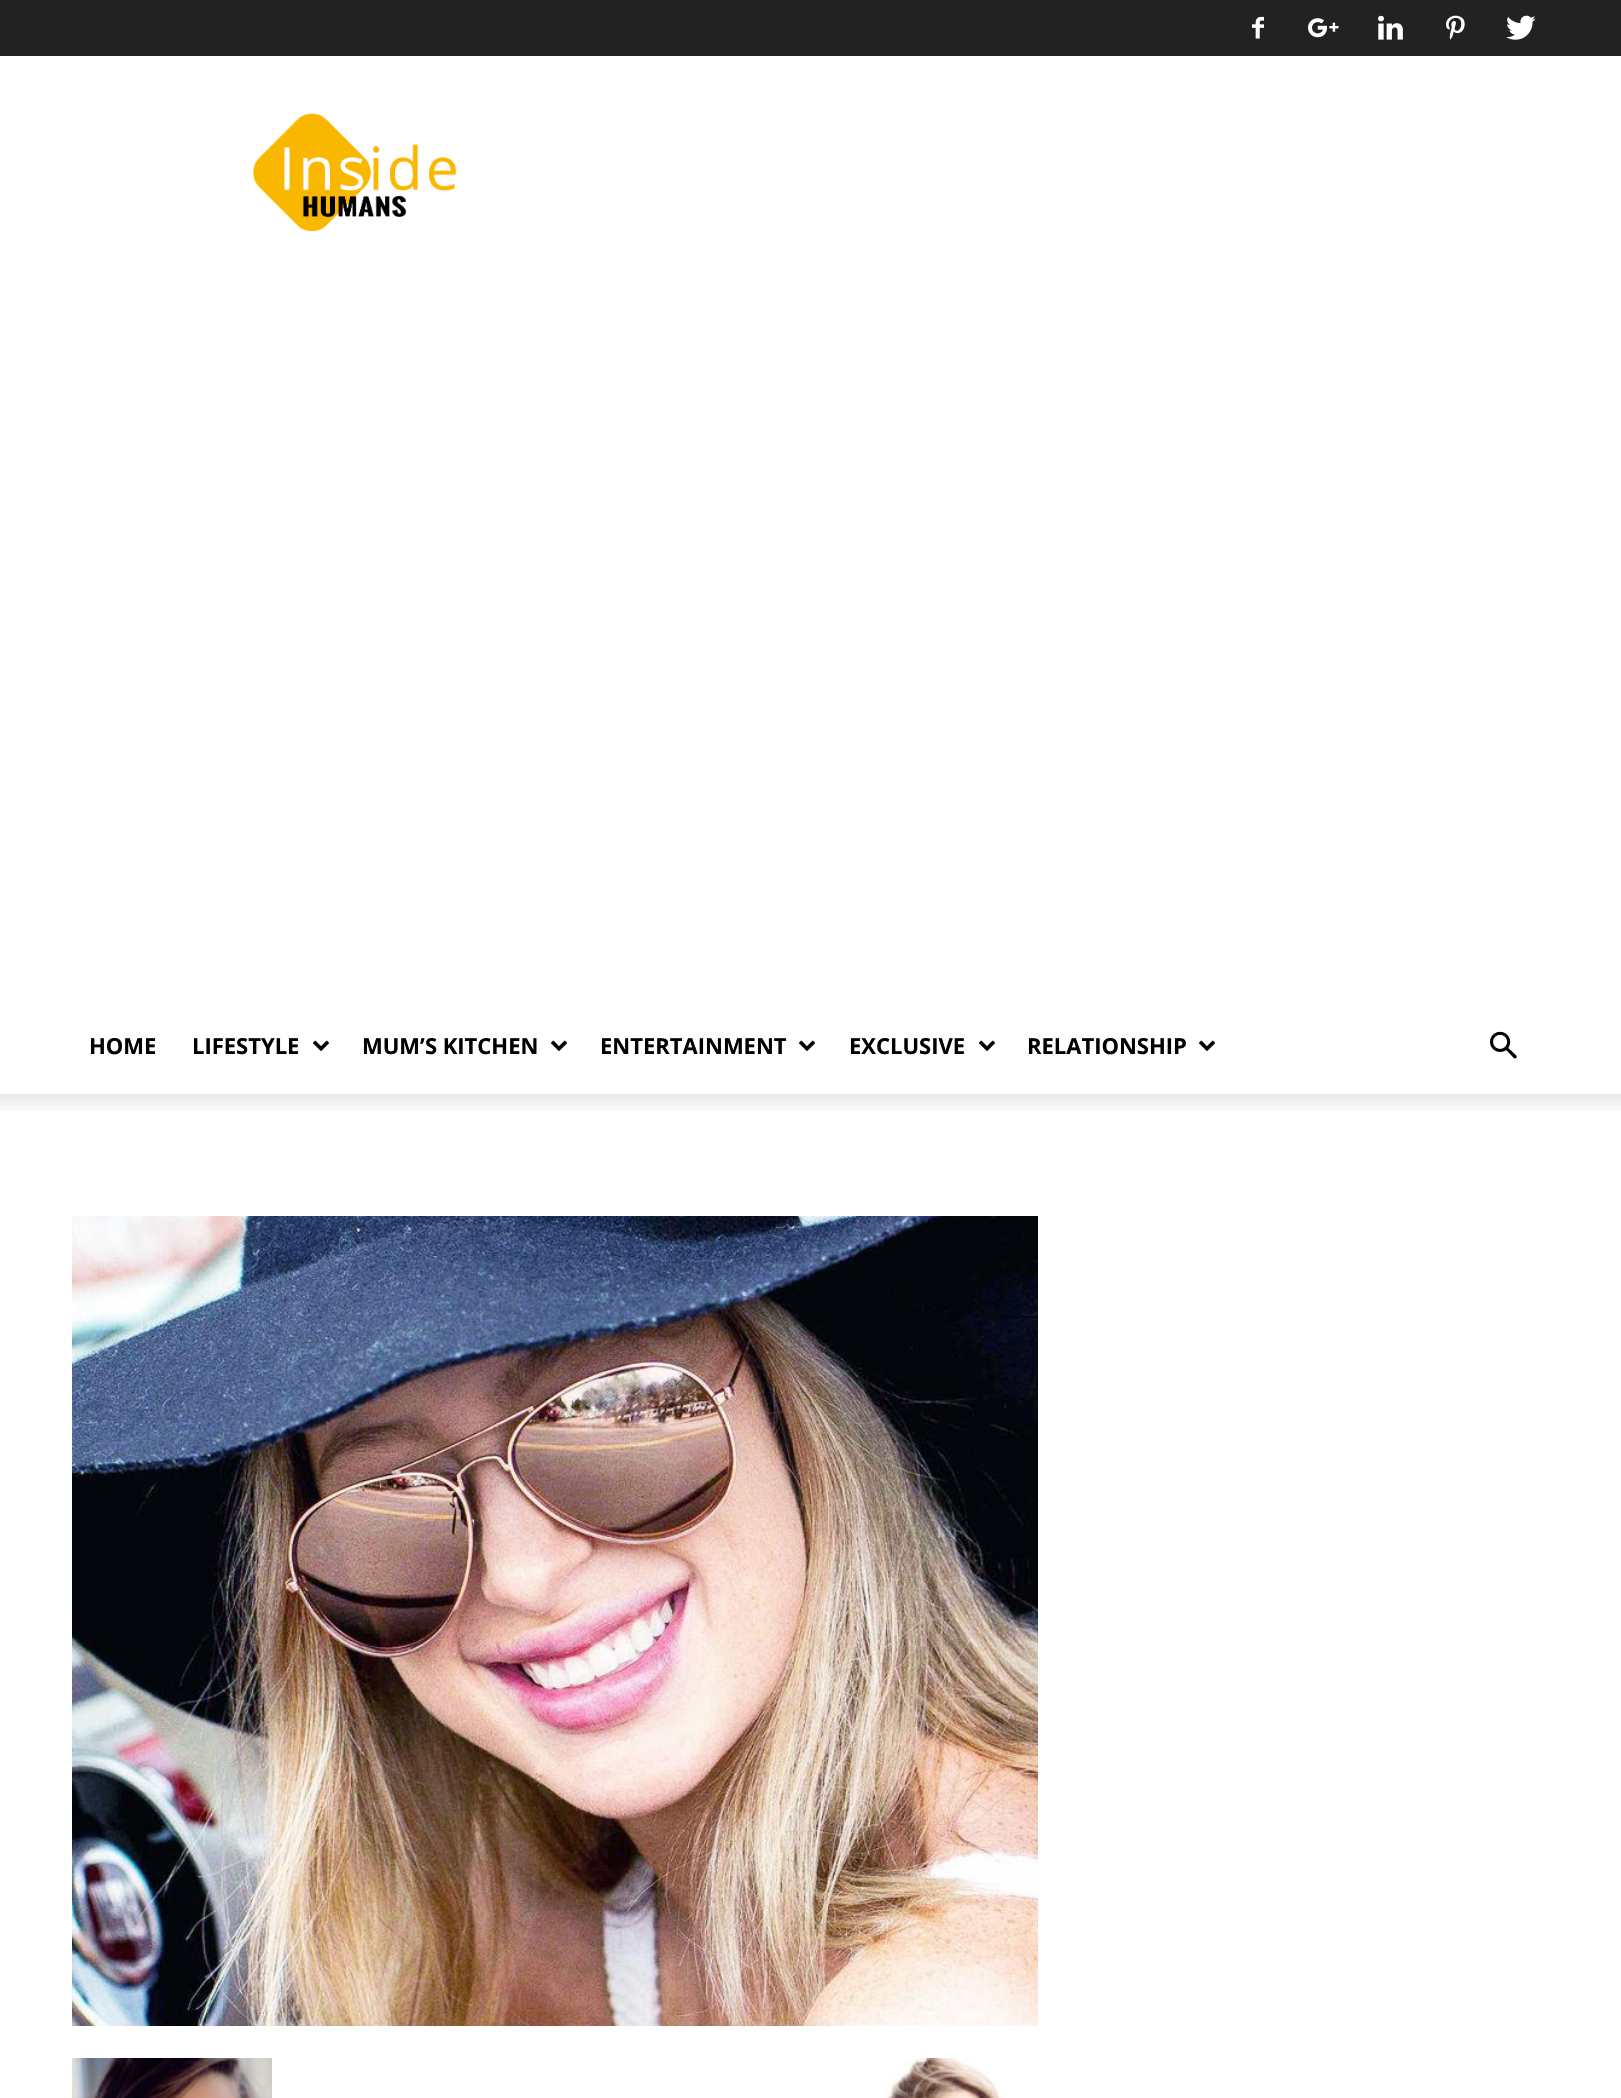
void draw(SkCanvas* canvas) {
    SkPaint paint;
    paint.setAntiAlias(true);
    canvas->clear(0xFFFFFFFF);
    paint.setColor(0xFF222222);
    canvas->drawRect(SkRect::MakeXYWH(0, 0, 1621, 56), paint);
    canvas->drawImageRect(SkImages::DeferredFromEncodedData(SkData::MakeFromFileName("img1.png")), SkRect::MakeXYWH(1252, 16, 12, 23), SkSamplingOptions());
    canvas->drawImageRect(SkImages::DeferredFromEncodedData(SkData::MakeFromFileName("img2.png")), SkRect::MakeXYWH(1308, 18, 31, 20), SkSamplingOptions());
    canvas->drawImageRect(SkImages::DeferredFromEncodedData(SkData::MakeFromFileName("img3.png")), SkRect::MakeXYWH(1378, 15, 25, 25), SkSamplingOptions());
    canvas->drawImageRect(SkImages::DeferredFromEncodedData(SkData::MakeFromFileName("img4.png")), SkRect::MakeXYWH(1446, 15, 19, 25), SkSamplingOptions());
    canvas->drawImageRect(SkImages::DeferredFromEncodedData(SkData::MakeFromFileName("img5.png")), SkRect::MakeXYWH(1506, 15, 30, 25), SkSamplingOptions());
    canvas->drawImageRect(SkImages::DeferredFromEncodedData(SkData::MakeFromFileName("img6.png")), SkRect::MakeXYWH(252, 113, 205, 119), SkSamplingOptions());
    SkFont font1(fontMgr->matchFamilyStyle("Open Sans", SkFontStyle::Bold()), 22);
    font1.setSubpixel(true);
    paint.setColor(0xFF000000);
    canvas->drawString("HOME", 89, 1054, font1, paint);
    canvas->drawString("LIFESTYLE", 192, 1054, font1, paint);
    canvas->drawImageRect(SkImages::DeferredFromEncodedData(SkData::MakeFromFileName("img7.png")), SkRect::MakeXYWH(313, 1040, 16, 11), SkSamplingOptions());
    canvas->drawString("MUM’S KITCHEN", 362, 1054, font1, paint);
    canvas->drawImageRect(SkImages::DeferredFromEncodedData(SkData::MakeFromFileName("img7.png")), SkRect::MakeXYWH(551, 1040, 16, 11), SkSamplingOptions());
    canvas->drawString("ENTERTAINMENT", 600, 1054, font1, paint);
    canvas->drawImageRect(SkImages::DeferredFromEncodedData(SkData::MakeFromFileName("img7.png")), SkRect::MakeXYWH(799, 1040, 16, 11), SkSamplingOptions());
    canvas->drawString("EXCLUSIVE", 849, 1054, font1, paint);
    canvas->drawImageRect(SkImages::DeferredFromEncodedData(SkData::MakeFromFileName("img7.png")), SkRect::MakeXYWH(979, 1040, 16, 11), SkSamplingOptions());
    canvas->drawString("RELATIONSHIP", 1027, 1054, font1, paint);
    canvas->drawImageRect(SkImages::DeferredFromEncodedData(SkData::MakeFromFileName("img7.png")), SkRect::MakeXYWH(1199, 1040, 16, 11), SkSamplingOptions());
    canvas->drawImageRect(SkImages::DeferredFromEncodedData(SkData::MakeFromFileName("img8.png")), SkRect::MakeXYWH(1490, 1031, 27, 28), SkSamplingOptions());
    canvas->drawImageRect(SkImages::DeferredFromEncodedData(SkData::MakeFromFileName("img9.png")), SkRect::MakeXYWH(0, 1094, 1621, 17), SkSamplingOptions());
    canvas->drawImageRect(SkImages::DeferredFromEncodedData(SkData::MakeFromFileName("img10.png")), SkRect::MakeXYWH(72, 1216, 966, 810), SkSamplingOptions());
    canvas->drawImageRect(SkImages::DeferredFromEncodedData(SkData::MakeFromFileName("img11.png")), SkRect::MakeXYWH(72, 2058, 200, 40), SkSamplingOptions());
    canvas->drawImageRect(SkImages::DeferredFromEncodedData(SkData::MakeFromFileName("img12.png")), SkRect::MakeXYWH(883, 2058, 121, 40), SkSamplingOptions());
}
